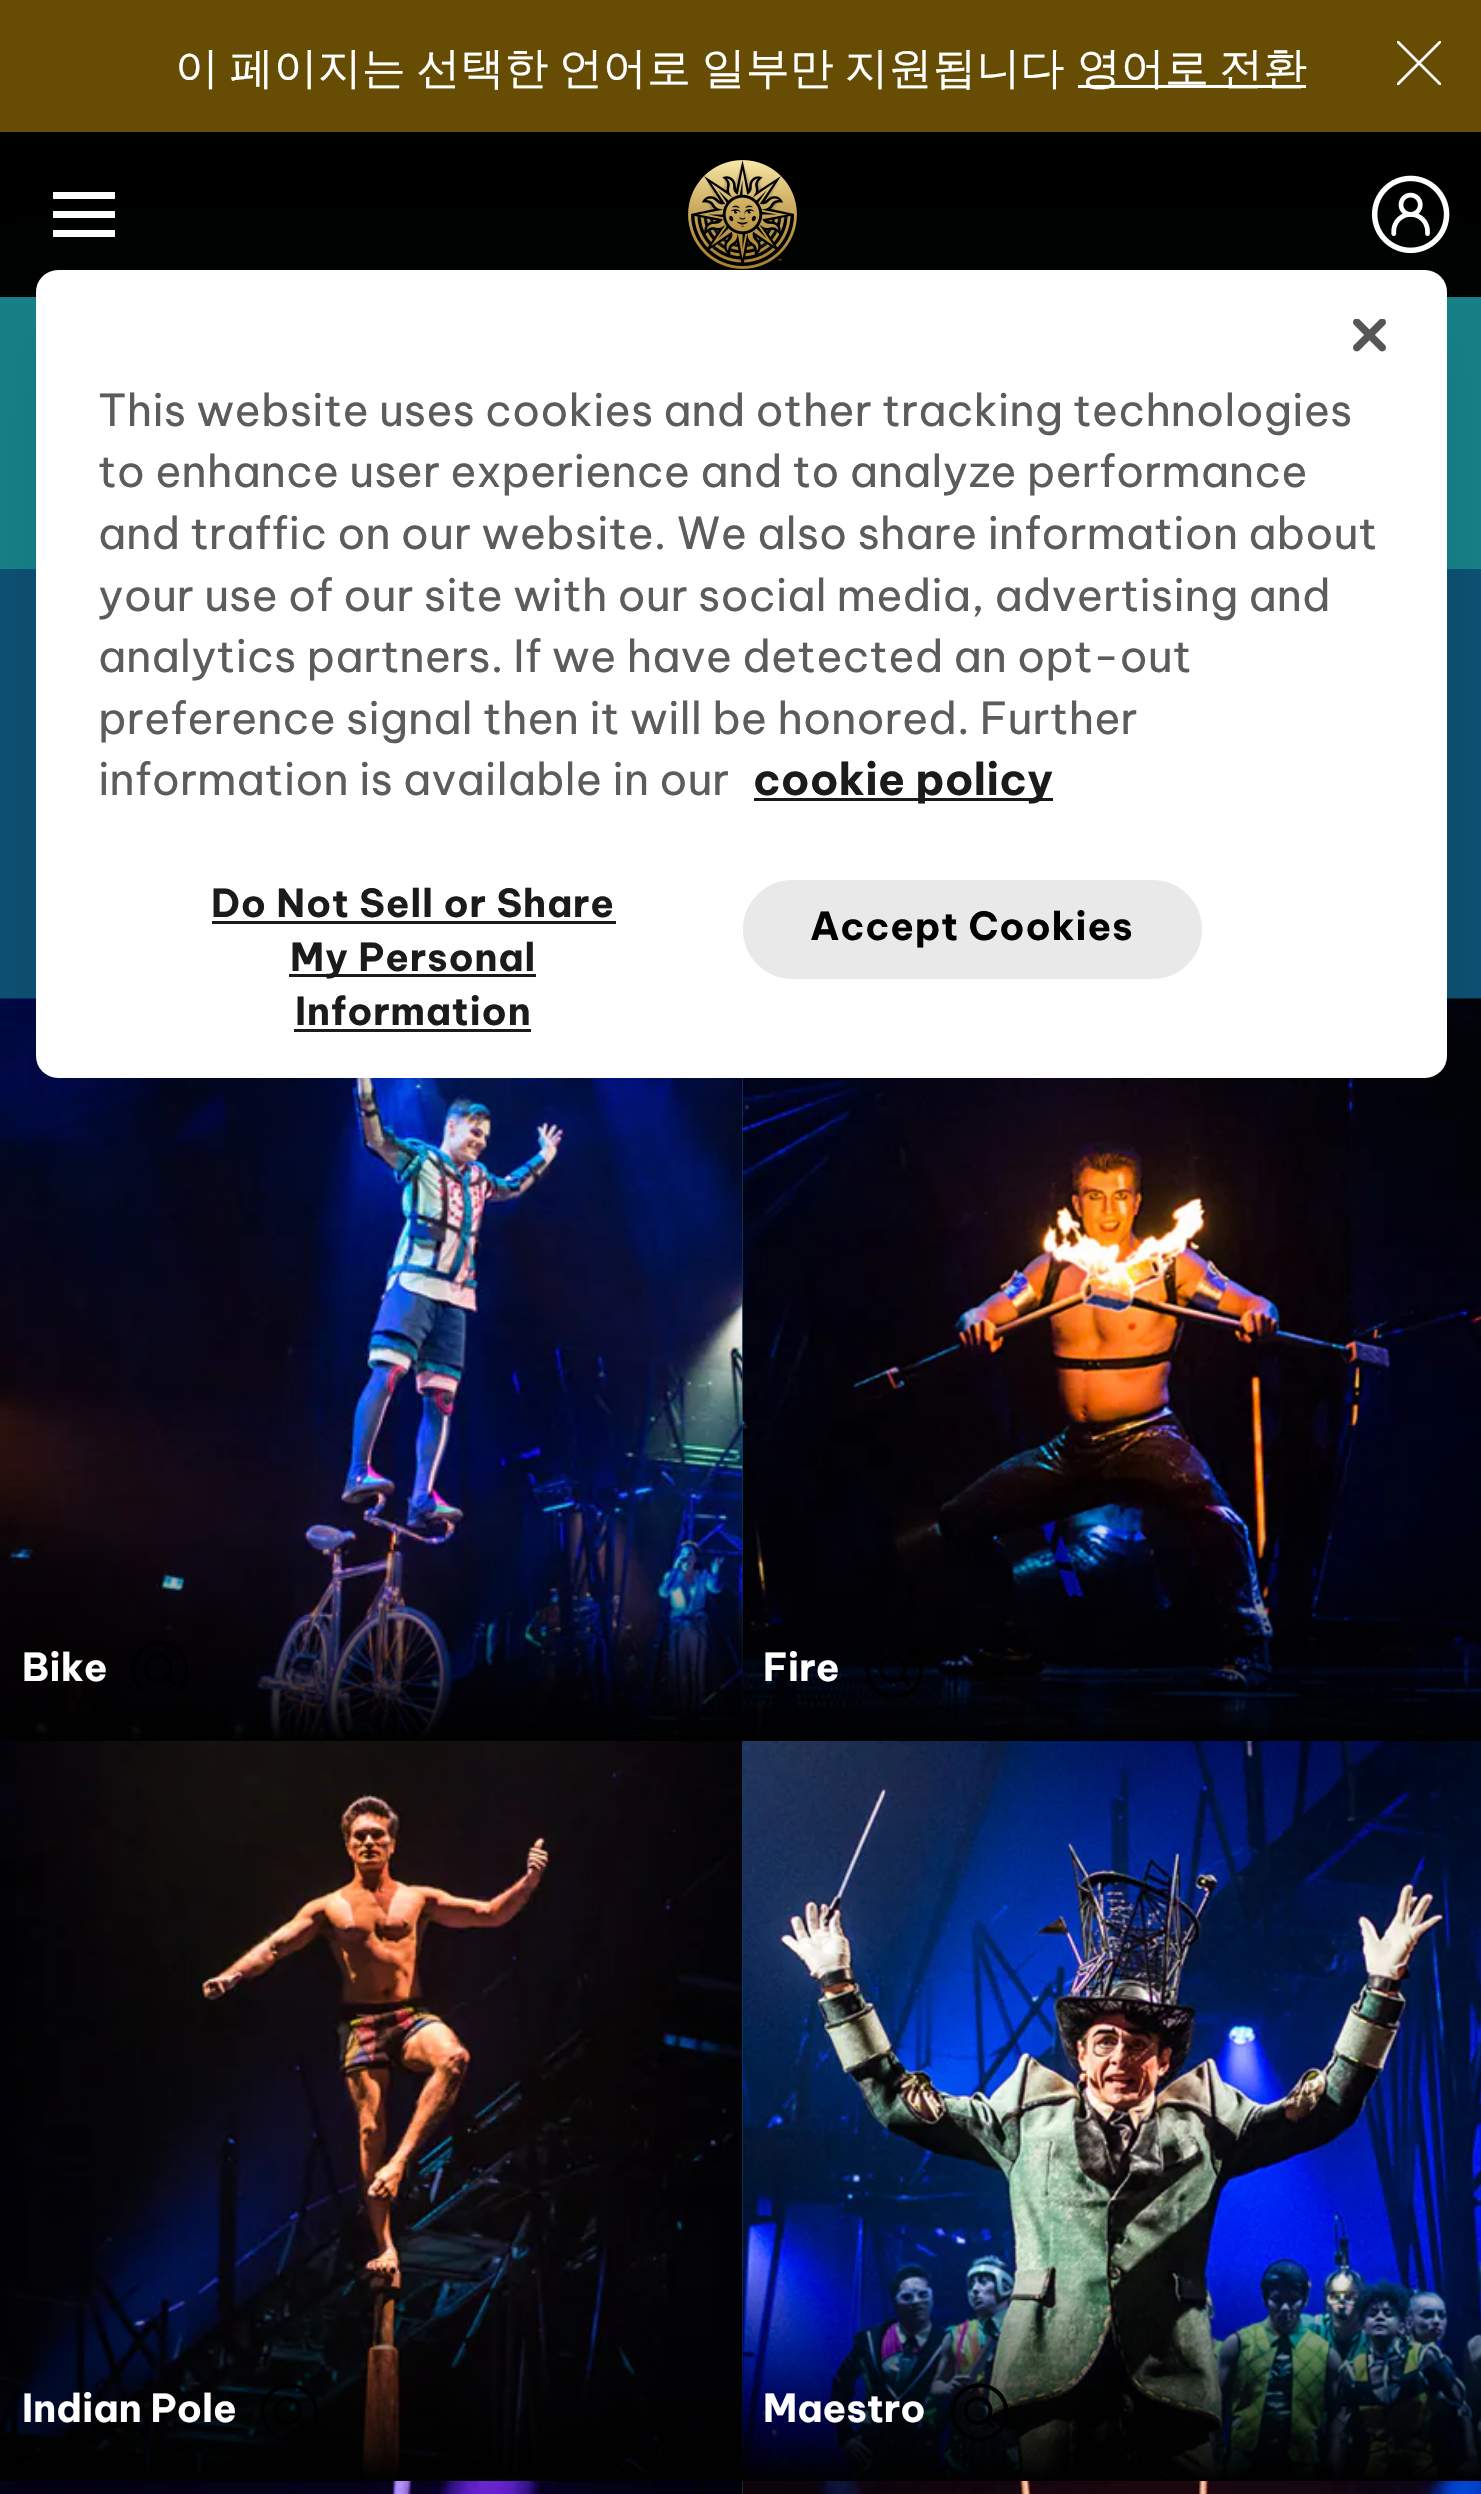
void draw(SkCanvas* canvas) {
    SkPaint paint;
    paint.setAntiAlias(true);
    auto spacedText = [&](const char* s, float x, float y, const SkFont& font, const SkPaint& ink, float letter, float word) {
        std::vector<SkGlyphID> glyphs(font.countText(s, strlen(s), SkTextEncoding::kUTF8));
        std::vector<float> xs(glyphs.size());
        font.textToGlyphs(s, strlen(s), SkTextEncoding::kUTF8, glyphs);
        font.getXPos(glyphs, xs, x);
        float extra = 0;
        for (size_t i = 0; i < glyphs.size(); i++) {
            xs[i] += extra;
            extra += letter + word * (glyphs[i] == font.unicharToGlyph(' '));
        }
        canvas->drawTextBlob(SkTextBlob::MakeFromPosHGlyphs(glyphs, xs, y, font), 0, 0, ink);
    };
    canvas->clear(0xFF178087);
    paint.setColor(0xFF664D03);
    canvas->drawRect(SkRect::MakeXYWH(0, 0, 1481, 132), paint);
    SkFont font1(fontMgr->matchFamilyStyle("WenQuanYi Zen Hei", SkFontStyle(500, SkFontStyle::kNormal_Width, SkFontStyle::kUpright_Slant)), 44);
    font1.setSubpixel(true);
    paint.setColor(0xFFFFFFFF);
    spacedText("이 페이지는 선택한 언어로 일부만 지원됩니다", 175, 83, font1, paint, 0, -2.5f);
    canvas->drawRect(SkRect::MakeXYWH(1078, 85, 228, 3), paint);
    spacedText("영어로 전환", 1077, 83, font1, paint, 0, -3);
    canvas->save();
    canvas->clipRect(SkRect::MakeXYWH(1397, 41, 44, 44));
    paint.setStyle(SkPaint::kStroke_Style);
    paint.setStrokeWidth(2.8f);
    canvas->drawPath(SkPathBuilder().moveTo(1397, 41).lineTo(1441, 85).moveTo(1397, 85).lineTo(1441, 41).detach(), paint);
    canvas->restore();
    paint.setStyle(SkPaint::kFill_Style);
    paint.setColor(0xFF000000);
    canvas->drawRect(SkRect::MakeXYWH(0, 132, 1481, 165), paint);
    paint.setColor(0xFFFFFFFF);
    canvas->drawPath(SkPathBuilder().moveTo(53, 211).lineTo(115, 211).lineTo(115, 218).lineTo(53, 218).close().moveTo(53, 237).lineTo(115, 237).lineTo(115, 230).lineTo(53, 230).close().moveTo(53, 192).lineTo(53, 199).lineTo(115, 199).lineTo(115, 192).close().detach(), paint);
    canvas->drawImageRect(SkImages::DeferredFromEncodedData(SkData::MakeFromFileName("img1.png")), SkRect::MakeXYWH(688, 160, 109, 109), SkSamplingOptions());
    canvas->drawImageRect(SkImages::DeferredFromEncodedData(SkData::MakeFromFileName("img2.png")), SkRect::MakeXYWH(1371, 175, 79, 79), SkSamplingOptions());
    paint.setColor(0xFF0D5072);
    canvas->drawRect(SkRect::MakeXYWH(0, 569, 1481, 1925), paint);
    canvas->drawImageRect(SkImages::DeferredFromEncodedData(SkData::MakeFromFileName("img3.png")), SkRect::MakeXYWH(0, 998, 743, 742), SkSamplingOptions());
    canvas->drawImageRect(SkImages::DeferredFromEncodedData(SkData::MakeFromFileName("img5.png")), SkRect::MakeXYWH(742, 998, 739, 742), SkSamplingOptions());
    {
        const SkColor colors[] = {0x00000000, 0xFF000000};
        const float stops[] = {0.7f, 1};
        const SkPoint ends[] = {{371, 998}, {371, 1741}};
        paint.setShader(SkGradientShader::MakeLinear(ends, colors, stops, 2, SkTileMode::kClamp));
        paint.setAlpha(255);
    }
    canvas->drawRect(SkRect::MakeXYWH(0, 1523, 743, 218), paint);
    SkFont font2(fontMgr->matchFamilyStyle("Be Vietnam Pro", SkFontStyle::Bold()), 38.5f);
    font2.setSubpixel(true);
    paint.setShader(nullptr);
    paint.setColor(0xFFFFFFFF);
    canvas->drawString("Bike", 22, 1681, font2, paint);
    canvas->drawImageRect(SkImages::DeferredFromEncodedData(SkData::MakeFromFileName("img4.png")), SkRect::MakeXYWH(131, 1641, 58, 50), SkSamplingOptions());
    {
        const SkColor colors[] = {0x00000000, 0xFF000000};
        const float stops[] = {0.7f, 1};
        const SkPoint ends[] = {{1112, 998}, {1112, 1741}};
        paint.setShader(SkGradientShader::MakeLinear(ends, colors, stops, 2, SkTileMode::kClamp));
        paint.setAlpha(255);
    }
    canvas->drawRect(SkRect::MakeXYWH(743, 1523, 738, 218), paint);
    paint.setShader(nullptr);
    paint.setColor(0xFFFFFFFF);
    canvas->drawString("Fire", 763, 1681, font2, paint);
    canvas->drawImageRect(SkImages::DeferredFromEncodedData(SkData::MakeFromFileName("img6.png")), SkRect::MakeXYWH(865, 1648, 59, 51), SkSamplingOptions());
    canvas->drawImageRect(SkImages::DeferredFromEncodedData(SkData::MakeFromFileName("img7.png")), SkRect::MakeXYWH(0, 1741, 743, 739), SkSamplingOptions());
    canvas->drawImageRect(SkImages::DeferredFromEncodedData(SkData::MakeFromFileName("img9.png")), SkRect::MakeXYWH(742, 1741, 739, 739), SkSamplingOptions());
    {
        const SkColor colors[] = {0x00000000, 0xFF000000};
        const float stops[] = {0.7f, 1};
        const SkPoint ends[] = {{371, 1741}, {371, 2481}};
        paint.setShader(SkGradientShader::MakeLinear(ends, colors, stops, 2, SkTileMode::kClamp));
        paint.setAlpha(255);
    }
    canvas->drawRect(SkRect::MakeXYWH(0, 2264, 743, 217), paint);
    paint.setShader(nullptr);
    paint.setColor(0xFFFFFFFF);
    canvas->drawString("Indian Pole", 22, 2422, font2, paint);
    canvas->drawImageRect(SkImages::DeferredFromEncodedData(SkData::MakeFromFileName("img8.png")), SkRect::MakeXYWH(260, 2384, 58, 48), SkSamplingOptions());
    {
        const SkColor colors[] = {0x00000000, 0xFF000000};
        const float stops[] = {0.7f, 1};
        const SkPoint ends[] = {{1112, 1741}, {1112, 2481}};
        paint.setShader(SkGradientShader::MakeLinear(ends, colors, stops, 2, SkTileMode::kClamp));
        paint.setAlpha(255);
    }
    canvas->drawRect(SkRect::MakeXYWH(743, 2264, 738, 217), paint);
    paint.setShader(nullptr);
    paint.setColor(0xFFFFFFFF);
    canvas->drawString("Maestro", 763, 2422, font2, paint);
    canvas->drawImageRect(SkImages::DeferredFromEncodedData(SkData::MakeFromFileName("img10.png")), SkRect::MakeXYWH(950, 2383, 58, 58), SkSamplingOptions());
    canvas->drawImageRect(SkImages::DeferredFromEncodedData(SkData::MakeFromFileName("img11.png")), SkRect::MakeXYWH(0, 2481, 743, 13), SkSamplingOptions());
    canvas->drawImageRect(SkImages::DeferredFromEncodedData(SkData::MakeFromFileName("img12.png")), SkRect::MakeXYWH(742, 2481, 739, 13), SkSamplingOptions());
    paint.setColor(0x14000F1E);
    paint.setMaskFilter(SkMaskFilter::MakeBlur(kNormal_SkBlurStyle, 44));
    canvas->drawRoundRect(SkRect::MakeXYWH(36, 314, 1411, 808), 22, 22, paint);
    paint.setMaskFilter(nullptr);
    paint.setColor(0xFFFFFFFF);
    canvas->drawRoundRect(SkRect::MakeXYWH(36, 270, 1411, 808), 22, 22, paint);
    canvas->drawImageRect(SkImages::DeferredFromEncodedData(SkData::MakeFromFileName("img13.png")), SkRect::MakeXYWH(1353, 319, 33, 33), SkSamplingOptions());
    SkFont font3(fontMgr->matchFamilyStyle("Be Vietnam Pro", SkFontStyle::Normal()), 44);
    font3.setSubpixel(true);
    paint.setColor(0xFF5C5C5C);
    canvas->drawString("This website uses cookies and other tracking technologies", 98, 426, font3, paint);
    canvas->drawString("to enhance user experience and to analyze performance", 98, 487, font3, paint);
    canvas->drawString("and traffic on our website. We also share information about", 98, 549, font3, paint);
    canvas->drawString("your use of our site with our social media, advertising and", 98, 611, font3, paint);
    canvas->drawString("analytics partners. If we have detected an opt-out", 98, 672, font3, paint);
    canvas->drawString("preference signal then it will be honored. Further", 98, 734, font3, paint);
    canvas->drawString("information is available in our", 98, 795, font3, paint);
    paint.setColor(0xFF1B1B1B);
    canvas->drawRect(SkRect::MakeXYWH(754, 798, 299, 3), paint);
    SkFont font4(fontMgr->matchFamilyStyle("Be Vietnam Pro", SkFontStyle::Bold()), 44);
    font4.setSubpixel(true);
    canvas->drawString("cookie policy", 753, 795, font4, paint);
    spacedText("Do Not Sell or Share", 211, 917, font2, paint, 0.75f, 0);
    canvas->drawRect(SkRect::MakeXYWH(212, 921, 404, 3), paint);
    canvas->drawRect(SkRect::MakeXYWH(289, 974, 247, 3), paint);
    spacedText("My Personal", 290, 971, font2, paint, 0.75f, 0);
    spacedText("Information", 295, 1025, font2, paint, 0.75f, 0);
    canvas->drawRect(SkRect::MakeXYWH(294, 1029, 237, 3), paint);
    paint.setColor(0xFFE9E9E9);
    canvas->drawRoundRect(SkRect::MakeXYWH(744.5f, 881.5f, 456, 96), 48, 48, paint);
    paint.setStyle(SkPaint::kStroke_Style);
    paint.setStrokeWidth(3);
    canvas->drawRoundRect(SkRect::MakeXYWH(744.5f, 881.5f, 456, 96), 48, 48, paint);
    paint.setStyle(SkPaint::kFill_Style);
    paint.setColor(0xFF000000);
    spacedText("Accept Cookies", 810, 940, font2, paint, 0.75f, 0);
}
